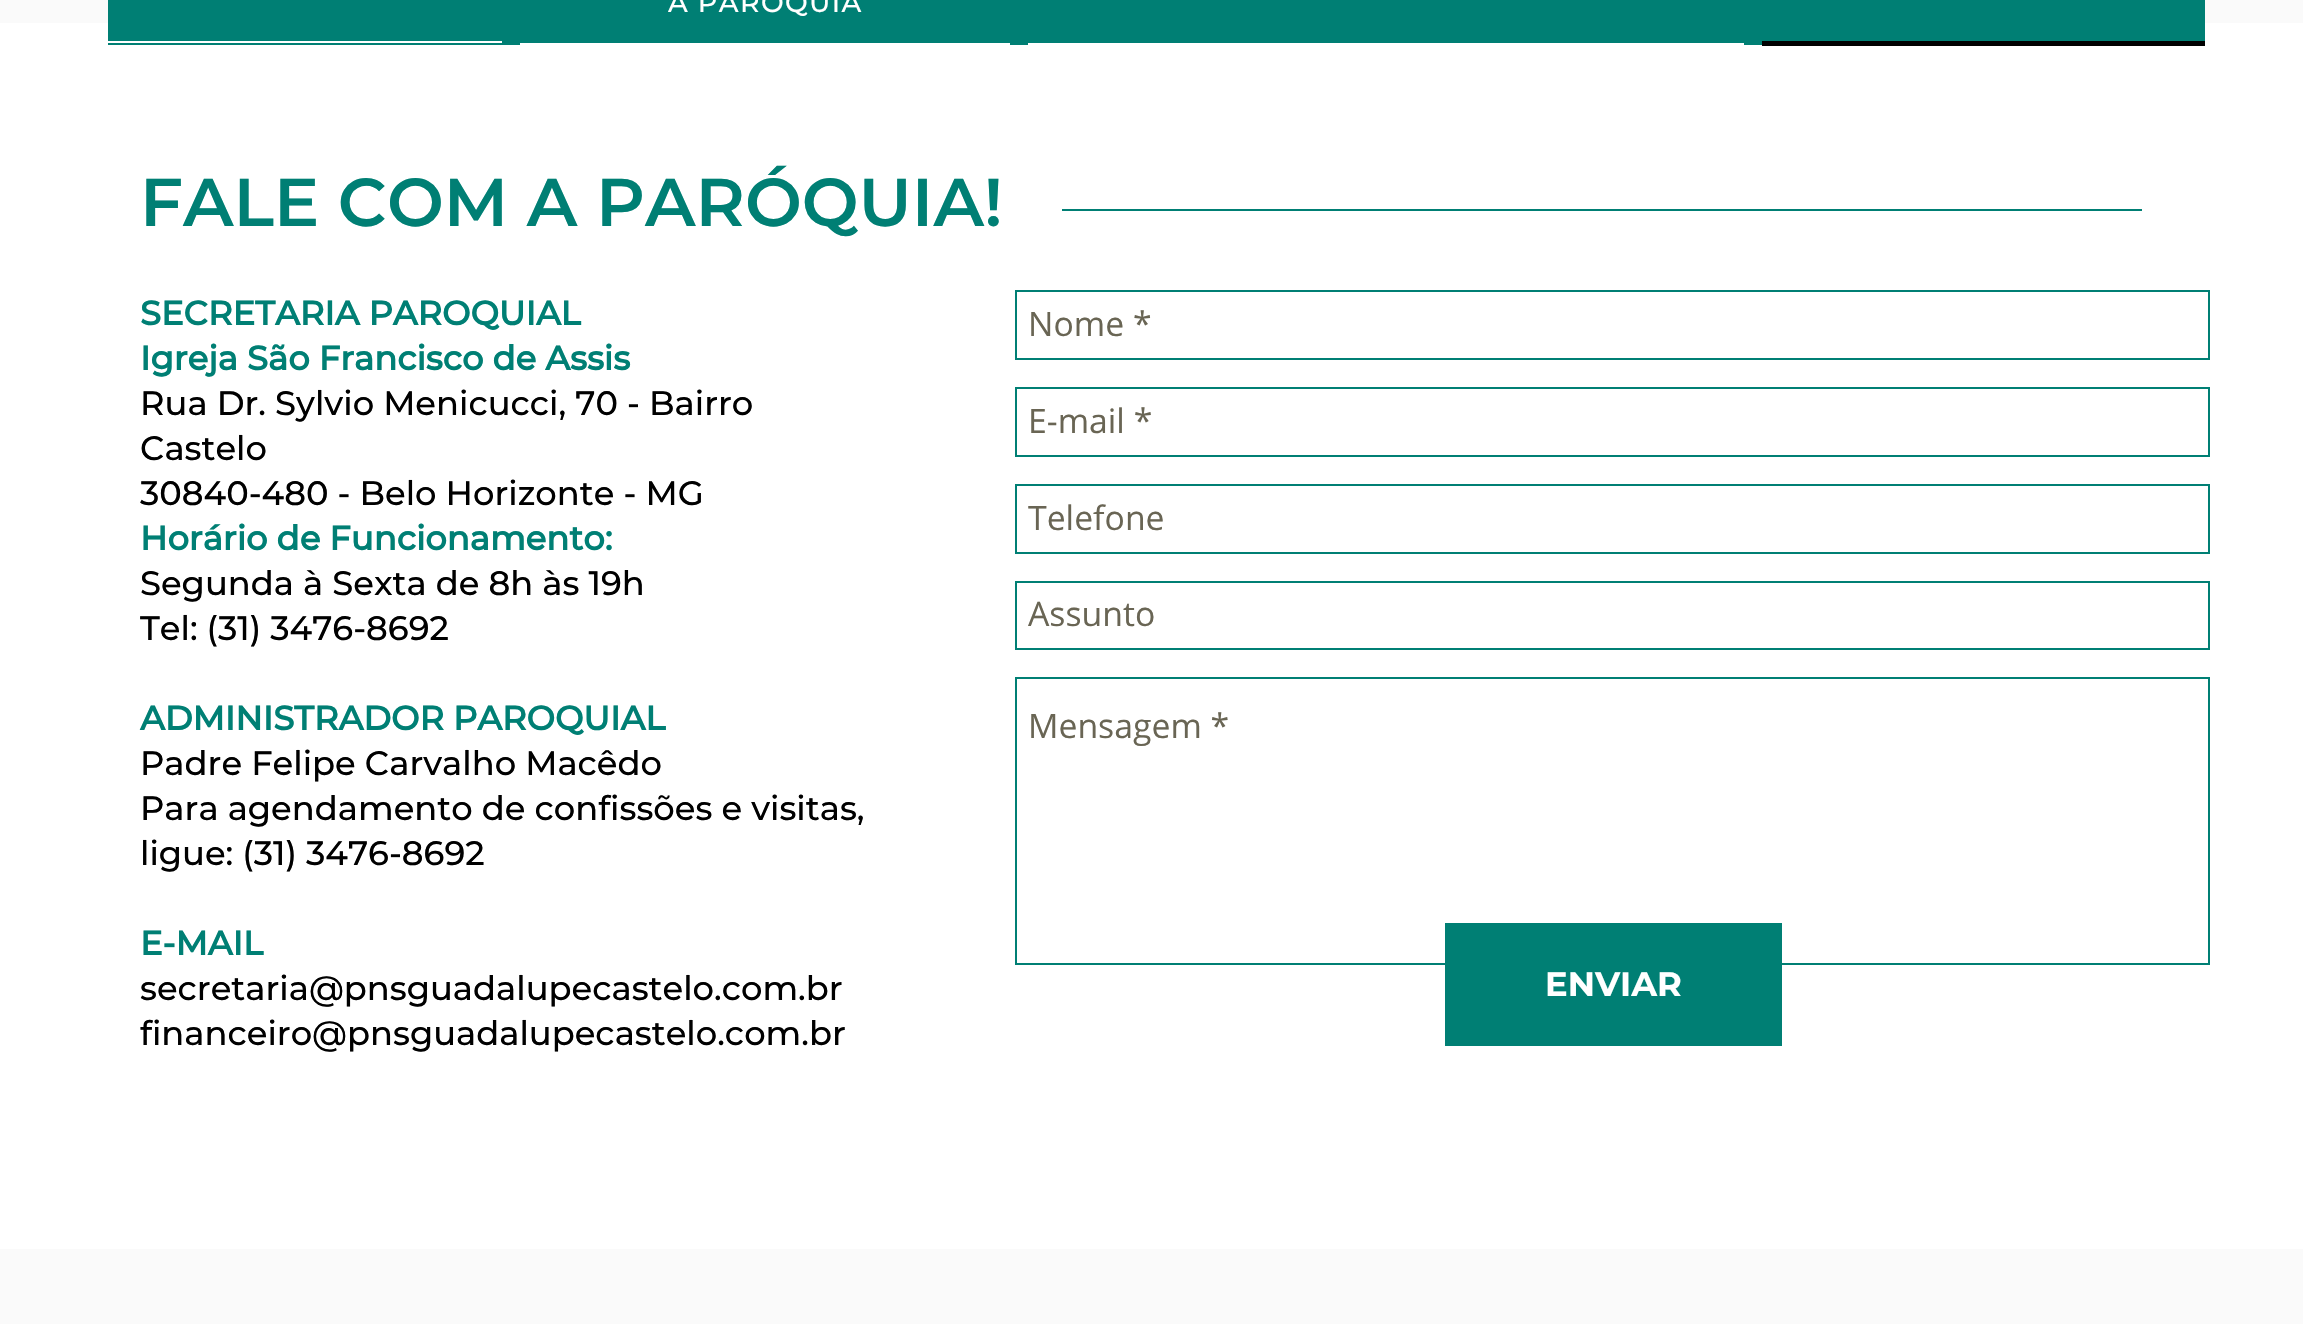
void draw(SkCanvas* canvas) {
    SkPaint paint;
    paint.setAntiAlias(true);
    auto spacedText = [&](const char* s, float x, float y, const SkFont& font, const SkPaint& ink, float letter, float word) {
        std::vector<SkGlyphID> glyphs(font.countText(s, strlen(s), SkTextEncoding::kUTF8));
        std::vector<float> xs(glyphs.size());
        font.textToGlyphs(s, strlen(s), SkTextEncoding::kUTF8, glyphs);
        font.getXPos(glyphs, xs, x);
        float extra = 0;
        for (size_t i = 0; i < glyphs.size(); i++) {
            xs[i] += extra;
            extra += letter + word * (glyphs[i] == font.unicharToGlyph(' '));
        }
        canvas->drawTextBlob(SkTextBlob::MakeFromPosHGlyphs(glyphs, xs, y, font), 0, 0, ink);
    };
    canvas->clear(0xFFFFFFFF);
    paint.setColor(0xFFFAFAFA);
    canvas->drawRect(SkRect::MakeXYWH(0, 0, 2303, 23), paint);
    paint.setColor(0xFF007F74);
    canvas->drawRect(SkRect::MakeXYWH(108, 0, 2097, 45), paint);
    paint.setColor(0xFFFFFFFF);
    canvas->drawRect(SkRect::MakeXYWH(520, 43, 490, 2), paint);
    SkFont font1(fontMgr->matchFamilyStyle("Montserrat", SkFontStyle(500, SkFontStyle::kNormal_Width, SkFontStyle::kUpright_Slant)), 27);
    font1.setSubpixel(true);
    spacedText("A PARÓQUIA", 668, 12, font1, paint, 1.4f, 0);
    canvas->drawRect(SkRect::MakeXYWH(108, 41, 394, 2), paint);
    canvas->drawRect(SkRect::MakeXYWH(1028, 43, 716, 2), paint);
    paint.setColor(0xFF000000);
    canvas->drawRect(SkRect::MakeXYWH(1762, 41, 443, 5), paint);
    SkFont font2(fontMgr->matchFamilyStyle("Montserrat", SkFontStyle(600, SkFontStyle::kNormal_Width, SkFontStyle::kUpright_Slant)), 67.5f);
    font2.setSubpixel(true);
    paint.setColor(0xFF007F74);
    canvas->drawString("FALE COM A PARÓQUIA!", 140, 226, font2, paint);
    canvas->drawRect(SkRect::MakeXYWH(1062, 209, 1080, 2), paint);
    SkFont font3(fontMgr->matchFamilyStyle("Montserrat", SkFontStyle::Bold()), 33.75f);
    font3.setSubpixel(true);
    canvas->drawString("SECRETARIA PAROQUIAL", 140, 325, font3, paint);
    canvas->drawString("Igreja São Francisco de Assis", 140, 370, font3, paint);
    SkFont font4(fontMgr->matchFamilyStyle("Montserrat", SkFontStyle(500, SkFontStyle::kNormal_Width, SkFontStyle::kUpright_Slant)), 33.75f);
    font4.setSubpixel(true);
    paint.setColor(0xFF000000);
    canvas->drawString("Rua Dr. Sylvio Menicucci, 70 - Bairro", 140, 415, font4, paint);
    canvas->drawString("Castelo", 140, 460, font4, paint);
    canvas->drawString("30840-480 - Belo Horizonte - MG", 140, 505, font4, paint);
    paint.setColor(0xFF007F74);
    canvas->drawString("Horário de Funcionamento:", 140, 550, font3, paint);
    paint.setColor(0xFF000000);
    canvas->drawString("Segunda à Sexta de 8h às 19h", 140, 595, font4, paint);
    canvas->drawString("Tel: (31) 3476-8692", 140, 640, font4, paint);
    paint.setColor(0xFF007F74);
    canvas->drawString("ADMINISTRADOR PAROQUIAL", 140, 730, font3, paint);
    paint.setColor(0xFF000000);
    canvas->drawString("Padre Felipe Carvalho Macêdo", 140, 775, font4, paint);
    canvas->drawString("Para agendamento de confissões e visitas,", 140, 820, font4, paint);
    canvas->drawString("ligue: (31) 3476-8692", 140, 865, font4, paint);
    paint.setColor(0xFF007F74);
    canvas->drawString("E-MAIL", 140, 955, font3, paint);
    paint.setColor(0xFF000000);
    canvas->drawString("secretaria@pnsguadalupecastelo.com.br", 140, 1000, font4, paint);
    canvas->drawString("financeiro@pnsguadalupecastelo.com.br", 140, 1045, font4, paint);
    paint.setStyle(SkPaint::kStroke_Style);
    paint.setStrokeWidth(2);
    paint.setColor(0xFF007F74);
    canvas->drawRect(SkRect::MakeXYWH(1016, 291, 1193, 68), paint);
    SkFont font5(fontMgr->matchFamilyStyle("Open Sans", SkFontStyle::Normal()), 33.75f);
    font5.setSubpixel(true);
    paint.setStyle(SkPaint::kFill_Style);
    paint.setColor(0xFF696554);
    canvas->drawString("Nome *", 1028, 336, font5, paint);
    paint.setStyle(SkPaint::kStroke_Style);
    paint.setColor(0xFF007F74);
    canvas->drawRect(SkRect::MakeXYWH(1016, 388, 1193, 68), paint);
    paint.setStyle(SkPaint::kFill_Style);
    paint.setColor(0xFF696554);
    canvas->drawString("E-mail *", 1028, 433, font5, paint);
    paint.setStyle(SkPaint::kStroke_Style);
    paint.setColor(0xFF007F74);
    canvas->drawRect(SkRect::MakeXYWH(1016, 485, 1193, 68), paint);
    paint.setStyle(SkPaint::kFill_Style);
    paint.setColor(0xFF696554);
    canvas->drawString("Telefone", 1028, 530, font5, paint);
    paint.setStyle(SkPaint::kStroke_Style);
    paint.setColor(0xFF007F74);
    canvas->drawRect(SkRect::MakeXYWH(1016, 582, 1193, 67), paint);
    paint.setStyle(SkPaint::kFill_Style);
    paint.setColor(0xFF696554);
    canvas->drawString("Assunto", 1028, 626, font5, paint);
    paint.setStyle(SkPaint::kStroke_Style);
    paint.setColor(0xFF007F74);
    canvas->drawRect(SkRect::MakeXYWH(1016, 678, 1193, 286), paint);
    paint.setStyle(SkPaint::kFill_Style);
    paint.setColor(0xFF696554);
    canvas->drawString("Mensagem *", 1028, 738, font5, paint);
    paint.setColor(0xFF007F74);
    canvas->drawRect(SkRect::MakeXYWH(1445, 923, 337, 123), paint);
    SkFont font6(fontMgr->matchFamilyStyle("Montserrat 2", SkFontStyle::Bold()), 33.75f);
    font6.setSubpixel(true);
    paint.setColor(0xFFFFFFFF);
    canvas->drawString("ENVIAR", 1545, 996, font6, paint);
    paint.setColor(0xFFFAFAFA);
    canvas->drawRect(SkRect::MakeXYWH(0, 1249, 2303, 75), paint);
}
